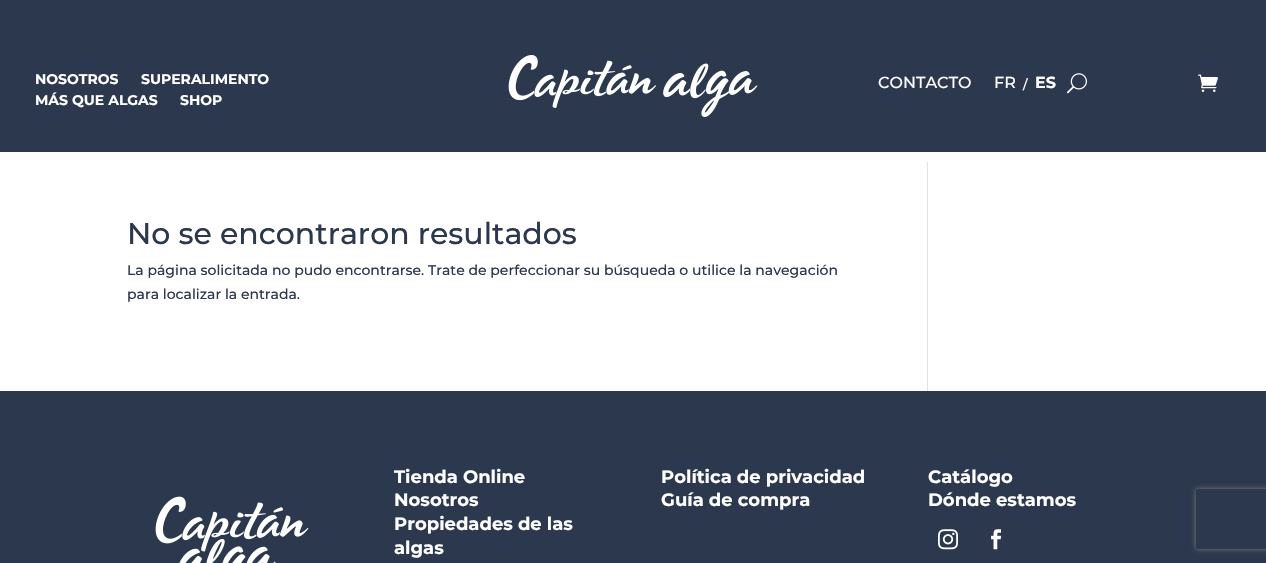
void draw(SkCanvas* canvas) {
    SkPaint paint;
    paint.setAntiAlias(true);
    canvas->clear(0xFFFFFFFF);
    paint.setColor(0xFF2C384D);
    canvas->drawRect(SkRect::MakeXYWH(0, 0, 1266, 152), paint);
    SkFont font1(fontMgr->matchFamilyStyle("Montserrat", SkFontStyle::Bold()), 14);
    font1.setSubpixel(true);
    paint.setColor(0xFFFFFFFF);
    canvas->drawString("NOSOTROS", 35, 84, font1, paint);
    canvas->drawString("SUPERALIMENTO", 141, 84, font1, paint);
    canvas->drawString("MÁS QUE ALGAS", 35, 105, font1, paint);
    canvas->drawString("SHOP", 180, 105, font1, paint);
    canvas->drawImageRect(SkImages::DeferredFromEncodedData(SkData::MakeFromFileName("img1.png")), SkRect::MakeXYWH(508, 55, 250, 62), SkSamplingOptions());
    SkFont font2(fontMgr->matchFamilyStyle("Montserrat", SkFontStyle(500, SkFontStyle::kNormal_Width, SkFontStyle::kUpright_Slant)), 16);
    font2.setSubpixel(true);
    canvas->drawString("CONTACTO", 878, 88, font2, paint);
    canvas->drawString("FR", 994, 88, font2, paint);
    SkFont font3(fontMgr->matchFamilyStyle("Montserrat", SkFontStyle(500, SkFontStyle::kNormal_Width, SkFontStyle::kUpright_Slant)), 13);
    font3.setSubpixel(true);
    canvas->drawString("/", 1023, 89, font3, paint);
    SkFont font4(fontMgr->matchFamilyStyle("Montserrat", SkFontStyle::Bold()), 16);
    font4.setSubpixel(true);
    canvas->drawString("ES", 1035, 88, font4, paint);
    canvas->drawImageRect(SkImages::DeferredFromEncodedData(SkData::MakeFromFileName("img2.png")), SkRect::MakeXYWH(1067, 73, 20, 21), SkSamplingOptions());
    canvas->drawImageRect(SkImages::DeferredFromEncodedData(SkData::MakeFromFileName("img3.png")), SkRect::MakeXYWH(1198, 74, 20, 18), SkSamplingOptions());
    SkFont font5(fontMgr->matchFamilyStyle("Montserrat", SkFontStyle(500, SkFontStyle::kNormal_Width, SkFontStyle::kUpright_Slant)), 30);
    font5.setSubpixel(true);
    paint.setColor(0xFF2C384D);
    canvas->drawString("No se encontraron resultados", 127, 244, font5, paint);
    SkFont font6(fontMgr->matchFamilyStyle("Montserrat", SkFontStyle(500, SkFontStyle::kNormal_Width, SkFontStyle::kUpright_Slant)), 14);
    font6.setSubpixel(true);
    canvas->drawString("La página solicitada no pudo encontrarse. Trate de perfeccionar su búsqueda o utilice la navegación", 127, 275, font6, paint);
    canvas->drawString("para localizar la entrada.", 127, 299, font6, paint);
    paint.setColor(0xFFE2E2E2);
    canvas->drawRect(SkRect::MakeXYWH(927, 162, 1, 229), paint);
    paint.setColor(0xFF2C384D);
    canvas->drawRect(SkRect::MakeXYWH(0, 391, 1266, 172), paint);
    SkFont font7(fontMgr->matchFamilyStyle("Montserrat", SkFontStyle::Bold()), 18);
    font7.setSubpixel(true);
    paint.setColor(0xFFFFFFFF);
    canvas->drawString("Tienda Online", 394, 483, font7, paint);
    canvas->drawString("Nosotros", 394, 506, font7, paint);
    canvas->drawString("Propiedades de las", 394, 530, font7, paint);
    canvas->drawString("algas", 394, 554, font7, paint);
    canvas->drawString("Política de privacidad", 661, 483, font7, paint);
    canvas->drawString("Guía de compra", 661, 506, font7, paint);
    canvas->drawString("Catálogo", 928, 483, font7, paint);
    canvas->drawString("Dónde estamos", 928, 506, font7, paint);
    canvas->drawImageRect(SkImages::DeferredFromEncodedData(SkData::MakeFromFileName("img4.png")), SkRect::MakeXYWH(938, 529, 20, 21), SkSamplingOptions());
    canvas->drawImageRect(SkImages::DeferredFromEncodedData(SkData::MakeFromFileName("img5.png")), SkRect::MakeXYWH(991, 529, 10, 21), SkSamplingOptions());
    canvas->drawImageRect(SkImages::DeferredFromEncodedData(SkData::MakeFromFileName("img6.png")), SkRect::MakeXYWH(155, 496, 154, 67), SkSamplingOptions());
    canvas->save();
    canvas->clipPath(SkPathBuilder(SkPathFillType::kEvenOdd).moveTo(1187, 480).lineTo(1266, 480).lineTo(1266, 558).lineTo(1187, 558).close().moveTo(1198, 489).lineTo(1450, 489).cubicTo(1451, 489, 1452, 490, 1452, 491).lineTo(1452, 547).cubicTo(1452, 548, 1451, 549, 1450, 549).lineTo(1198, 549).cubicTo(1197, 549, 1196, 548, 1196, 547).lineTo(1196, 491).cubicTo(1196, 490, 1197, 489, 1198, 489).close().detach(), true);
    paint.setColor(0xFF808080);
    paint.setMaskFilter(SkMaskFilter::MakeBlur(kNormal_SkBlurStyle, 2.5f));
    canvas->drawRoundRect(SkRect::MakeXYWH(1196, 489, 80, 60), 2, 2, paint);
    paint.setMaskFilter(nullptr);
    canvas->restore();
}
